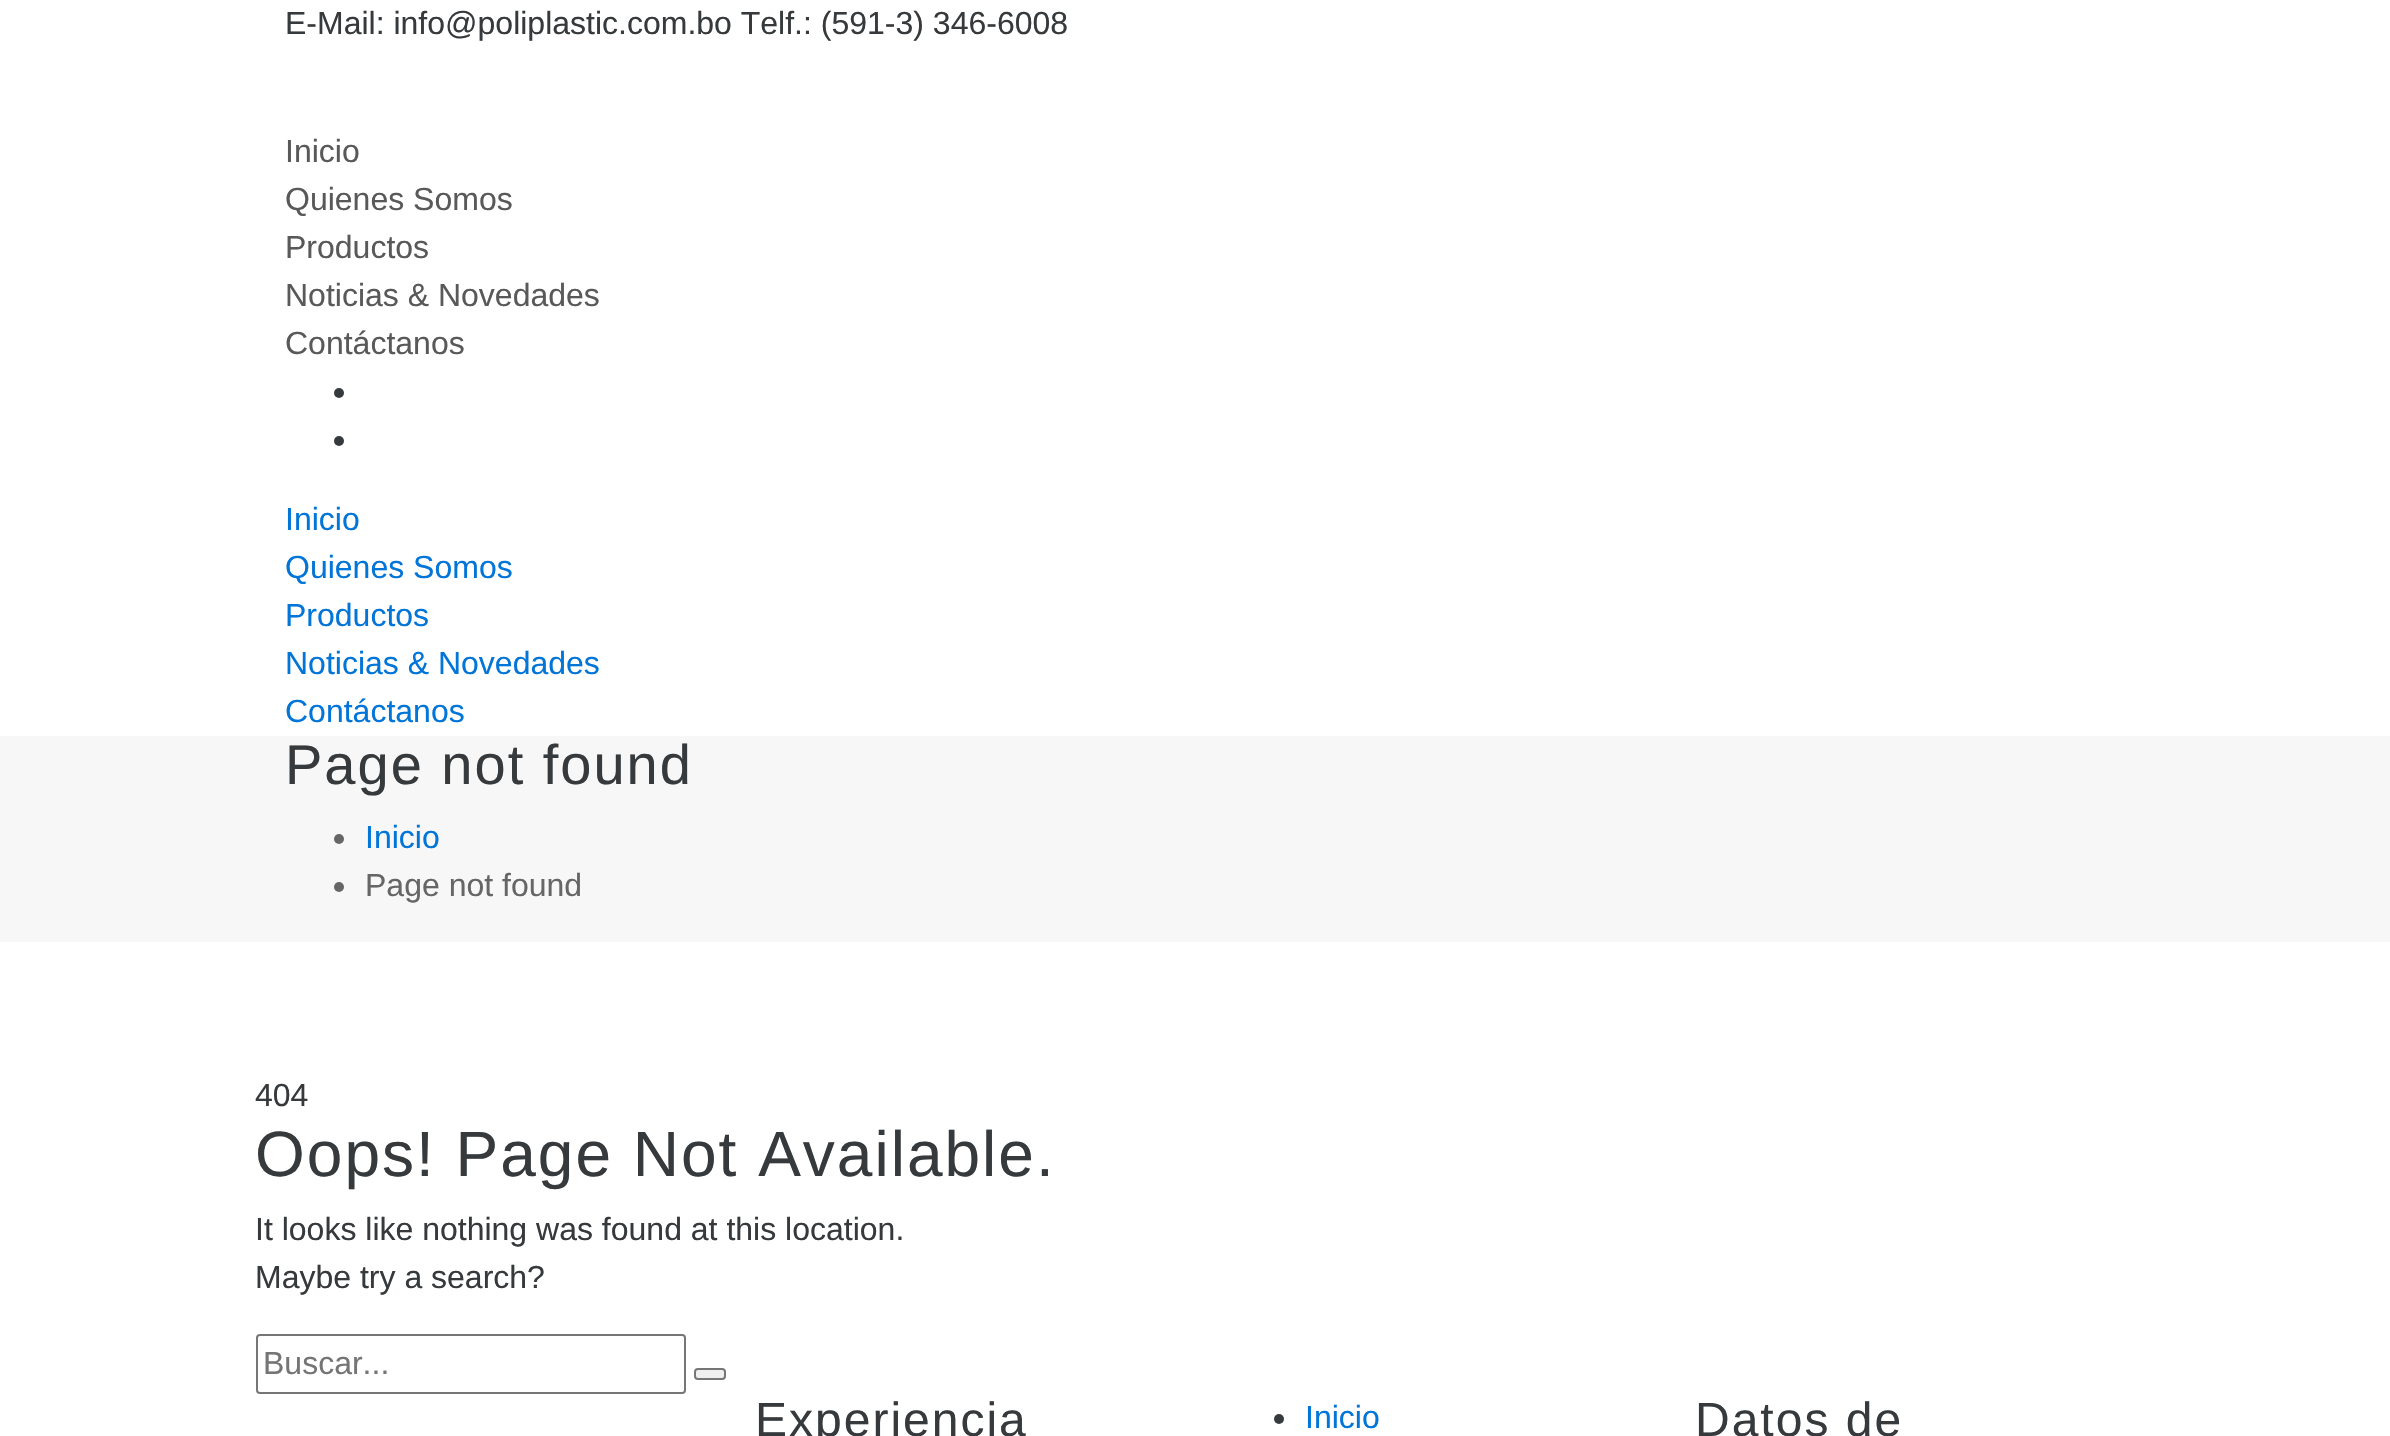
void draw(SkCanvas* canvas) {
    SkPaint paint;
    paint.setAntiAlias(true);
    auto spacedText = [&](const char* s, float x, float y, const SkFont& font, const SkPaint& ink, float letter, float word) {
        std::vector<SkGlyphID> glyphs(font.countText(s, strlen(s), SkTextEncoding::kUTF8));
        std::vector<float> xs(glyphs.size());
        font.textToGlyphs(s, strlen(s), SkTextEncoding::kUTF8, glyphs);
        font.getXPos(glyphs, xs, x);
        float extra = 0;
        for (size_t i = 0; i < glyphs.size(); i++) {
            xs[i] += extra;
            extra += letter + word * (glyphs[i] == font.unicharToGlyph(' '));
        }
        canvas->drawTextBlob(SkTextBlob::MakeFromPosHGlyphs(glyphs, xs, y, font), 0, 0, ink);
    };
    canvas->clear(0xFFFFFFFF);
    SkFont font1(fontMgr->matchFamilyStyle("Liberation Sans", SkFontStyle::Normal()), 32);
    font1.setSubpixel(true);
    paint.setColor(0xFF373A3C);
    canvas->drawString("E-Mail: info@poliplastic.com.bo Telf.: (591-3) 346-6008", 285, 34, font1, paint);
    paint.setColor(0xFF595959);
    canvas->drawString("Inicio", 285, 162, font1, paint);
    canvas->drawString("Quienes Somos", 285, 210, font1, paint);
    canvas->drawString("Productos", 285, 258, font1, paint);
    canvas->drawString("Noticias & Novedades", 285, 306, font1, paint);
    canvas->drawString("Contáctanos", 285, 354, font1, paint);
    paint.setColor(0xFF373A3C);
    canvas->drawCircle(339, 393, 5, paint);
    canvas->drawCircle(339, 441, 5, paint);
    paint.setColor(0xFF0275D8);
    canvas->drawString("Inicio", 285, 530, font1, paint);
    canvas->drawString("Quienes Somos", 285, 578, font1, paint);
    canvas->drawString("Productos", 285, 626, font1, paint);
    canvas->drawString("Noticias & Novedades", 285, 674, font1, paint);
    canvas->drawString("Contáctanos", 285, 722, font1, paint);
    paint.setColor(0xFFF7F7F7);
    canvas->drawRect(SkRect::MakeXYWH(0, 736, 2390, 206), paint);
    SkFont font2(fontMgr->matchFamilyStyle("Liberation Sans", SkFontStyle::Normal()), 56);
    font2.setSubpixel(true);
    paint.setColor(0xFF373A3C);
    spacedText("Page not found", 285, 784, font2, paint, 2, 0);
    paint.setColor(0xFF666666);
    canvas->drawCircle(339, 839, 5, paint);
    paint.setColor(0xFF0275D8);
    canvas->drawString("Inicio", 365, 848, font1, paint);
    paint.setColor(0xFF666666);
    canvas->drawCircle(339, 887, 5, paint);
    canvas->drawString("Page not found", 365, 896, font1, paint);
    paint.setColor(0xFF373A3C);
    canvas->drawString("404", 255, 1106, font1, paint);
    SkFont font3(fontMgr->matchFamilyStyle("Liberation Sans", SkFontStyle::Normal()), 64);
    font3.setSubpixel(true);
    spacedText("Oops! Page Not Available.", 255, 1176, font3, paint, 2, 0);
    canvas->drawString("It looks like nothing was found at this location.", 255, 1240, font1, paint);
    canvas->drawString("Maybe try a search?", 255, 1288, font1, paint);
    paint.setStyle(SkPaint::kStroke_Style);
    paint.setStrokeWidth(2);
    paint.setColor(0xFF767676);
    canvas->drawRoundRect(SkRect::MakeXYWH(257, 1335, 428, 58), 3, 3, paint);
    paint.setStyle(SkPaint::kFill_Style);
    paint.setColor(0xFF757575);
    canvas->drawString("Buscar...", 263, 1374, font1, paint);
    paint.setColor(0xFFEFEFEF);
    canvas->drawRoundRect(SkRect::MakeXYWH(695, 1369, 30, 10), 3, 3, paint);
    paint.setStyle(SkPaint::kStroke_Style);
    paint.setColor(0xFF767676);
    canvas->drawRoundRect(SkRect::MakeXYWH(695, 1369, 30, 10), 3, 3, paint);
    SkFont font4(fontMgr->matchFamilyStyle("Liberation Sans", SkFontStyle::Normal()), 48);
    font4.setSubpixel(true);
    paint.setStyle(SkPaint::kFill_Style);
    paint.setColor(0xFF373A3C);
    spacedText("Experiencia", 755, 1436, font4, paint, 2, 0);
    canvas->drawCircle(1279, 1419, 5, paint);
    paint.setColor(0xFF0275D8);
    canvas->drawString("Inicio", 1305, 1428, font1, paint);
    paint.setColor(0xFF373A3C);
    spacedText("Datos de", 1695, 1436, font4, paint, 2, 0);
}
